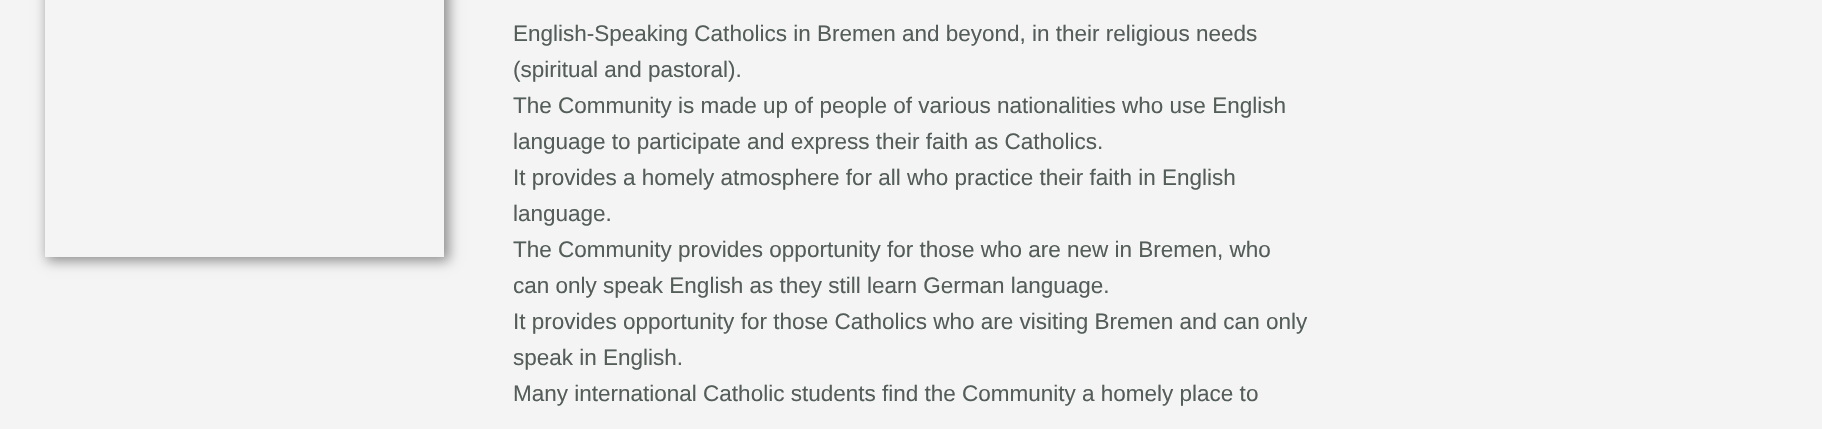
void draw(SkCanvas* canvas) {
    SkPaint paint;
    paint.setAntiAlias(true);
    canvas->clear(0xFFF4F4F4);
    canvas->save();
    canvas->clipPath(SkPathBuilder(SkPathFillType::kEvenOdd).moveTo(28, 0).lineTo(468, 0).lineTo(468, 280).lineTo(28, 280).close().moveTo(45, -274).lineTo(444, -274).lineTo(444, 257).lineTo(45, 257).close().detach(), true);
    paint.setColor(0xFF8E8E8E);
    paint.setMaskFilter(SkMaskFilter::MakeBlur(kNormal_SkBlurStyle, 6));
    canvas->drawRect(SkRect::MakeXYWH(47, -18, 402, 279), paint);
    paint.setMaskFilter(nullptr);
    canvas->restore();
    SkFont font1(fontMgr->matchFamilyStyle("Liberation Sans", SkFontStyle::Normal()), 22.5f);
    font1.setSubpixel(true);
    paint.setColor(0xFF545E59);
    canvas->drawString("English-Speaking Catholics in Bremen and beyond, in their religious needs", 513, 41, font1, paint);
    canvas->drawString("(spiritual and pastoral).", 513, 77, font1, paint);
    canvas->drawString("The Community is made up of people of various nationalities who use English", 513, 113, font1, paint);
    canvas->drawString("language to participate and express their faith as Catholics.", 513, 149, font1, paint);
    canvas->drawString("It provides a homely atmosphere for all who practice their faith in English", 513, 185, font1, paint);
    canvas->drawString("language.", 513, 221, font1, paint);
    canvas->drawString("The Community provides opportunity for those who are new in Bremen, who", 513, 257, font1, paint);
    canvas->drawString("can only speak English as they still learn German language.", 513, 293, font1, paint);
    canvas->drawString("It provides opportunity for those Catholics who are visiting Bremen and can only", 513, 329, font1, paint);
    canvas->drawString("speak in English.", 513, 365, font1, paint);
    canvas->drawString("Many international Catholic students find the Community a homely place to", 513, 401, font1, paint);
}
